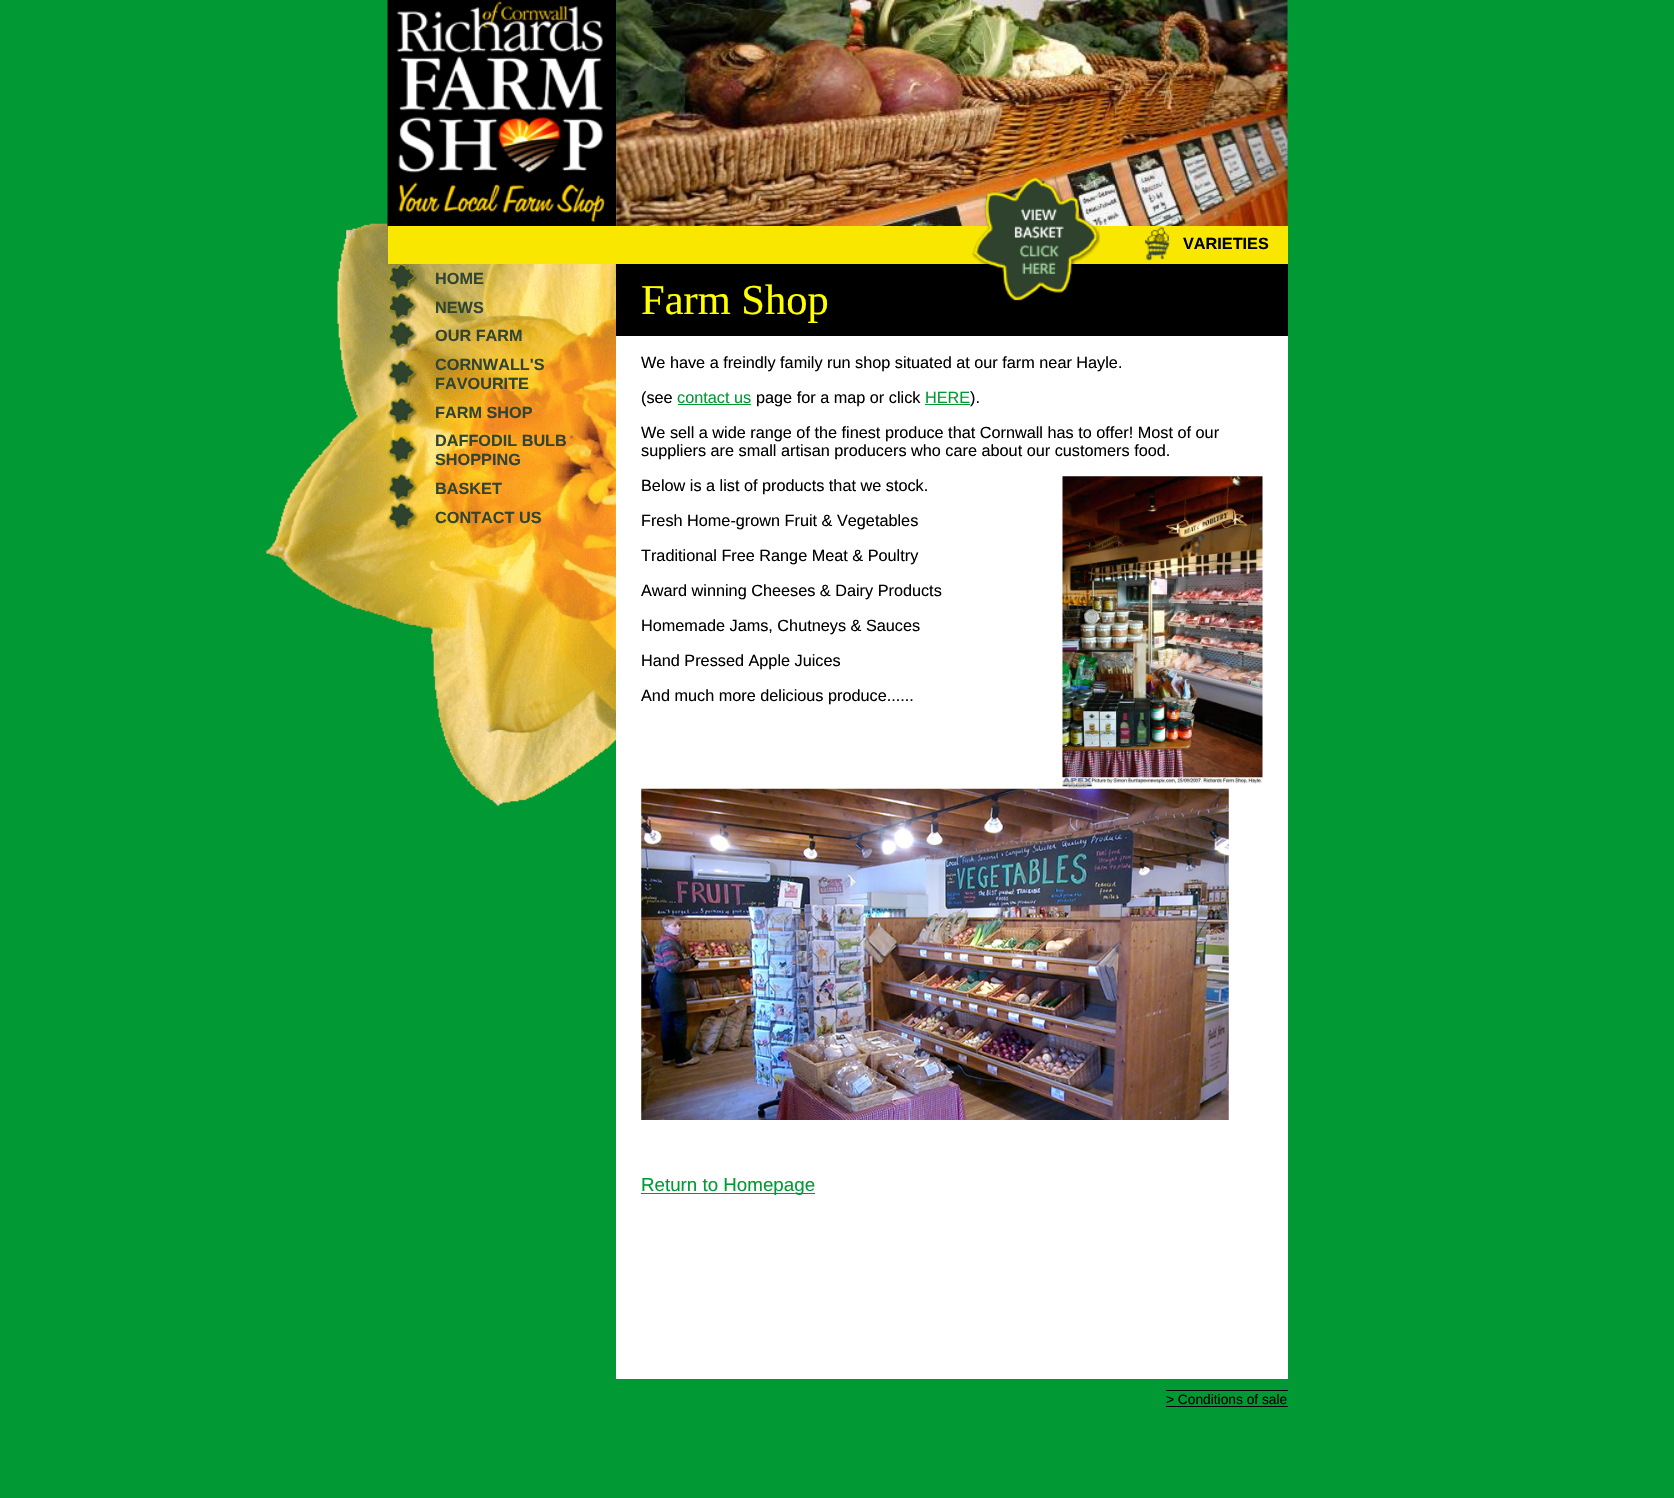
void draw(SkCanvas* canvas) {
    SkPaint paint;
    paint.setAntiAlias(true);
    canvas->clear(0xFF009933);
    canvas->drawImageRect(SkImages::DeferredFromEncodedData(SkData::MakeFromFileName("img5.png")), SkRect::MakeXYWH(266, 148, 351, 659), SkSamplingOptions());
    canvas->drawImageRect(SkImages::DeferredFromEncodedData(SkData::MakeFromFileName("img1.png")), SkRect::MakeXYWH(387, 0, 230, 227), SkSamplingOptions());
    canvas->drawImageRect(SkImages::DeferredFromEncodedData(SkData::MakeFromFileName("img2.png")), SkRect::MakeXYWH(616, 0, 672, 226), SkSamplingOptions());
    paint.setColor(0xFFFAE700);
    canvas->drawRect(SkRect::MakeXYWH(388, 226, 900, 38), paint);
    paint.setColor(0xFF000000);
    canvas->drawRect(SkRect::MakeXYWH(616, 264, 672, 72), paint);
    canvas->drawImageRect(SkImages::DeferredFromEncodedData(SkData::MakeFromFileName("img3.png")), SkRect::MakeXYWH(972, 176, 128, 125), SkSamplingOptions());
    canvas->drawImageRect(SkImages::DeferredFromEncodedData(SkData::MakeFromFileName("img4.png")), SkRect::MakeXYWH(1144, 227, 26, 34), SkSamplingOptions());
    SkFont font1(fontMgr->matchFamilyStyle("Liberation Sans", SkFontStyle::Bold()), 16.25f);
    font1.setSubpixel(true);
    canvas->drawString("VARIETIES", 1183, 249, font1, paint);
    canvas->drawImageRect(SkImages::DeferredFromEncodedData(SkData::MakeFromFileName("img6.png")), SkRect::MakeXYWH(387, 264, 31, 29), SkSamplingOptions());
    paint.setColor(0xFF324432);
    canvas->drawString("HOME", 435, 284, font1, paint);
    canvas->drawImageRect(SkImages::DeferredFromEncodedData(SkData::MakeFromFileName("img7.png")), SkRect::MakeXYWH(387, 292, 31, 29), SkSamplingOptions());
    canvas->drawString("NEWS", 435, 313, font1, paint);
    canvas->drawImageRect(SkImages::DeferredFromEncodedData(SkData::MakeFromFileName("img8.png")), SkRect::MakeXYWH(387, 321, 31, 29), SkSamplingOptions());
    canvas->drawString("OUR FARM", 435, 341, font1, paint);
    canvas->drawImageRect(SkImages::DeferredFromEncodedData(SkData::MakeFromFileName("img9.png")), SkRect::MakeXYWH(387, 360, 31, 29), SkSamplingOptions());
    canvas->drawString("CORNWALL'S", 435, 370, font1, paint);
    canvas->drawString("FAVOURITE", 435, 389, font1, paint);
    canvas->drawImageRect(SkImages::DeferredFromEncodedData(SkData::MakeFromFileName("img10.png")), SkRect::MakeXYWH(387, 397, 31, 29), SkSamplingOptions());
    canvas->drawString("FARM SHOP", 435, 418, font1, paint);
    canvas->drawImageRect(SkImages::DeferredFromEncodedData(SkData::MakeFromFileName("img11.png")), SkRect::MakeXYWH(387, 436, 31, 29), SkSamplingOptions());
    canvas->drawString("DAFFODIL BULB", 435, 446, font1, paint);
    canvas->drawString("SHOPPING", 435, 465, font1, paint);
    canvas->drawImageRect(SkImages::DeferredFromEncodedData(SkData::MakeFromFileName("img12.png")), SkRect::MakeXYWH(387, 473, 31, 30), SkSamplingOptions());
    canvas->drawString("BASKET", 435, 494, font1, paint);
    canvas->drawImageRect(SkImages::DeferredFromEncodedData(SkData::MakeFromFileName("img13.png")), SkRect::MakeXYWH(387, 502, 31, 29), SkSamplingOptions());
    canvas->drawString("CONTACT US", 435, 523, font1, paint);
    paint.setColor(0xFFFFFFFF);
    canvas->drawRect(SkRect::MakeXYWH(616, 336, 672, 1043), paint);
    SkFont font2(fontMgr->matchFamilyStyle("Liberation Serif", SkFontStyle::Normal()), 42.5f);
    font2.setSubpixel(true);
    paint.setColor(0xFFFFFF00);
    canvas->drawString("Farm Shop", 641, 314, font2, paint);
    SkFont font3(fontMgr->matchFamilyStyle("Liberation Sans", SkFontStyle::Normal()), 16.25f);
    font3.setSubpixel(true);
    paint.setColor(0xFF000000);
    canvas->drawString("We have a freindly family run shop situated at our farm near Hayle.", 641, 368, font3, paint);
    canvas->drawString("(see", 641, 403, font3, paint);
    paint.setColor(0xFF009933);
    canvas->drawString("contact us", 677, 403, font3, paint);
    canvas->drawRect(SkRect::MakeXYWH(678, 404, 73, 1), paint);
    paint.setColor(0xFF000000);
    canvas->drawString("page for a map or click", 756, 403, font3, paint);
    paint.setColor(0xFF009933);
    canvas->drawString("HERE", 925, 403, font3, paint);
    canvas->drawRect(SkRect::MakeXYWH(925, 404, 45, 1), paint);
    paint.setColor(0xFF000000);
    canvas->drawString(").", 970, 403, font3, paint);
    canvas->drawString("We sell a wide range of the finest produce that Cornwall has to offer! Most of our", 641, 438, font3, paint);
    canvas->drawString("suppliers are small artisan producers who care about our customers food.", 641, 456, font3, paint);
    canvas->drawString("Below is a list of products that we stock.", 641, 491, font3, paint);
    canvas->drawImageRect(SkImages::DeferredFromEncodedData(SkData::MakeFromFileName("img14.png")), SkRect::MakeXYWH(1062, 476, 201, 312), SkSamplingOptions());
    canvas->drawString("Fresh Home-grown Fruit & Vegetables", 641, 526, font3, paint);
    canvas->drawString("Traditional Free Range Meat & Poultry", 641, 561, font3, paint);
    canvas->drawString("Award winning Cheeses & Dairy Products", 641, 596, font3, paint);
    canvas->drawString("Homemade Jams, Chutneys & Sauces", 641, 631, font3, paint);
    canvas->drawString("Hand Pressed Apple Juices", 641, 666, font3, paint);
    canvas->drawString("And much more delicious produce......", 641, 701, font3, paint);
    canvas->drawImageRect(SkImages::DeferredFromEncodedData(SkData::MakeFromFileName("img15.png")), SkRect::MakeXYWH(641, 788, 588, 332), SkSamplingOptions());
    paint.setColor(0xFF009933);
    canvas->drawRect(SkRect::MakeXYWH(641, 1193, 174, 1), paint);
    SkFont font4(fontMgr->matchFamilyStyle("Liberation Sans", SkFontStyle::Normal()), 18.75f);
    font4.setSubpixel(true);
    canvas->drawString("Return to Homepage", 641, 1191, font4, paint);
    SkFont font5(fontMgr->matchFamilyStyle("Liberation Sans", SkFontStyle::Normal()), 13.75f);
    font5.setSubpixel(true);
    paint.setColor(0xFF000000);
    canvas->drawString("> Conditions of sale", 1166, 1404, font5, paint);
    canvas->drawRect(SkRect::MakeXYWH(1166, 1390, 122, 1), paint);
    canvas->drawRect(SkRect::MakeXYWH(1166, 1406, 122, 1), paint);
}
